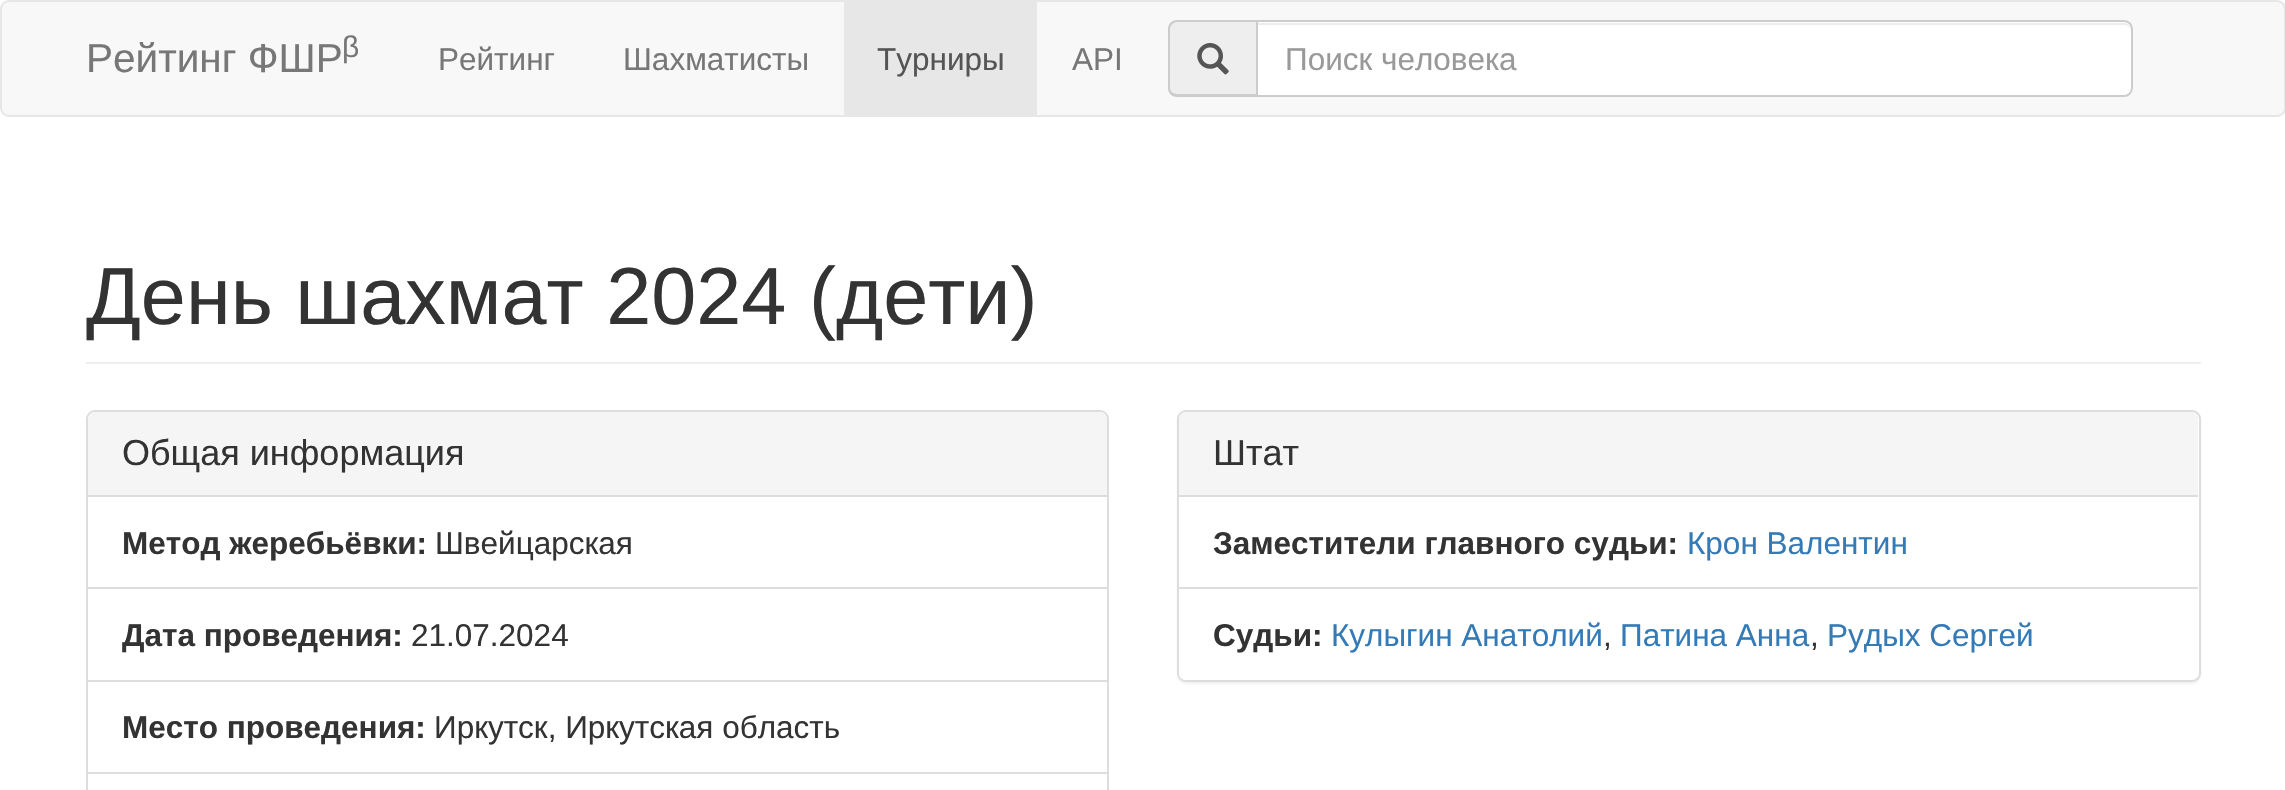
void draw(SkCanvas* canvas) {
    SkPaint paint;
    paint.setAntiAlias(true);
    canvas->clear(0xFFFFFFFF);
    paint.setColor(0xFFF8F8F8);
    canvas->drawRoundRect(SkRect::MakeXYWH(1, 1, 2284, 115), 8, 8, paint);
    paint.setStyle(SkPaint::kStroke_Style);
    paint.setStrokeWidth(2);
    paint.setColor(0xFFE7E7E7);
    canvas->drawRoundRect(SkRect::MakeXYWH(1, 1, 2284, 115), 8, 8, paint);
    SkFont font1(fontMgr->matchFamilyStyle("Liberation Sans", SkFontStyle::Normal()), 40.5f);
    font1.setSubpixel(true);
    paint.setStyle(SkPaint::kFill_Style);
    paint.setColor(0xFF777777);
    canvas->drawString("Рейтинг ФШР", 86, 72, font1, paint);
    SkFont font2(fontMgr->matchFamilyStyle("Liberation Sans", SkFontStyle::Normal()), 30);
    font2.setSubpixel(true);
    canvas->drawString("β", 342, 57, font2, paint);
    SkFont font3(fontMgr->matchFamilyStyle("Liberation Sans", SkFontStyle::Normal()), 31.5f);
    font3.setSubpixel(true);
    canvas->drawString("Рейтинг", 438, 70, font3, paint);
    canvas->drawString("Шахматисты", 623, 70, font3, paint);
    paint.setColor(0xFFE7E7E7);
    canvas->drawRect(SkRect::MakeXYWH(844, 2, 193, 113), paint);
    paint.setColor(0xFF555555);
    canvas->drawString("Турниры", 877, 70, font3, paint);
    paint.setColor(0xFF777777);
    canvas->drawString("API", 1072, 70, font3, paint);
    paint.setColor(0xFFEEEEEE);
    canvas->drawPath(SkPathBuilder().moveTo(1177, 20).lineTo(1256, 20).lineTo(1256, 97).lineTo(1177, 97).cubicTo(1172, 97, 1168, 93, 1168, 88).lineTo(1168, 29).cubicTo(1168, 24, 1172, 20, 1177, 20).close().detach(), paint);
    paint.setColor(0xFFCCCCCC);
    canvas->drawPath(SkPathBuilder(SkPathFillType::kEvenOdd).moveTo(1177, 20).lineTo(1256, 20).lineTo(1256, 97).lineTo(1177, 97).cubicTo(1172, 97, 1168, 93, 1168, 88).lineTo(1168, 29).cubicTo(1168, 24, 1172, 20, 1177, 20).close().moveTo(1177, 22).lineTo(1256, 22).lineTo(1256, 94).lineTo(1177, 94).cubicTo(1173, 94, 1170, 91, 1170, 88).lineTo(1170, 29).cubicTo(1170, 26, 1173, 22, 1177, 22).close().detach(), paint);
    canvas->drawImageRect(SkImages::DeferredFromEncodedData(SkData::MakeFromFileName("img1.png")), SkRect::MakeXYWH(1197, 43, 32, 32), SkSamplingOptions());
    paint.setColor(0xFFFFFFFF);
    canvas->drawRoundRect(SkRect::MakeXYWH(1256, 20, 877, 77), 9, 9, paint);
    paint.setColor(0xFFECECEC);
    canvas->drawPath(SkPathBuilder().moveTo(1258, 25).lineTo(2124, 25).cubicTo(2128, 25, 2131, 28, 2131, 32).cubicTo(2131, 28, 2129, 23, 2124, 23).lineTo(1258, 23).close().detach(), paint);
    paint.setStyle(SkPaint::kStroke_Style);
    paint.setColor(0xFFCCCCCC);
    canvas->drawPath(SkPathBuilder().moveTo(1257, 21).lineTo(2124, 21).cubicTo(2128.5f, 21, 2132, 24.5f, 2132, 29).lineTo(2132, 88).cubicTo(2132, 92.5f, 2128.5f, 96, 2124, 96).lineTo(1257, 96).close().detach(), paint);
    paint.setStyle(SkPaint::kFill_Style);
    paint.setColor(0xFF999999);
    canvas->drawString("Поиск человека", 1285, 70, font3, paint);
    paint.setColor(0xFFEEEEEE);
    canvas->drawRect(SkRect::MakeXYWH(86, 362, 2115, 2), paint);
    SkFont font4(fontMgr->matchFamilyStyle("Liberation Sans", SkFontStyle::Normal()), 81);
    font4.setSubpixel(true);
    paint.setColor(0xFF333333);
    canvas->drawString("День шахмат 2024 (дети)", 86, 324, font4, paint);
    paint.setStyle(SkPaint::kStroke_Style);
    paint.setColor(0xFFDDDDDD);
    canvas->drawRoundRect(SkRect::MakeXYWH(87, 411, 1021, 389), 8, 8, paint);
    paint.setStyle(SkPaint::kFill_Style);
    paint.setColor(0xFFF5F5F5);
    canvas->drawPath(SkPathBuilder().moveTo(95, 412).lineTo(1100, 412).cubicTo(1104, 412, 1107, 415, 1107, 419).lineTo(1107, 497).lineTo(88, 497).lineTo(88, 419).cubicTo(88, 415, 91, 412, 95, 412).close().detach(), paint);
    paint.setColor(0xFFDDDDDD);
    canvas->drawRect(SkRect::MakeXYWH(88, 495, 1019, 2), paint);
    SkFont font5(fontMgr->matchFamilyStyle("Liberation Sans", SkFontStyle::Normal()), 36);
    font5.setSubpixel(true);
    paint.setColor(0xFF333333);
    canvas->drawString("Общая информация", 122, 465, font5, paint);
    paint.setColor(0xFFDDDDDD);
    canvas->drawRect(SkRect::MakeXYWH(88, 587, 1019, 2), paint);
    SkFont font6(fontMgr->matchFamilyStyle("Liberation Sans", SkFontStyle::Bold()), 31.5f);
    font6.setSubpixel(true);
    paint.setColor(0xFF333333);
    canvas->drawString("Метод жеребьёвки:", 122, 554, font6, paint);
    canvas->drawString("Швейцарская", 435, 554, font3, paint);
    paint.setColor(0xFFDDDDDD);
    canvas->drawRect(SkRect::MakeXYWH(88, 680, 1019, 2), paint);
    paint.setColor(0xFF333333);
    canvas->drawString("Дата проведения:", 122, 646, font6, paint);
    canvas->drawString("21.07.2024", 411, 646, font3, paint);
    paint.setColor(0xFFDDDDDD);
    canvas->drawRect(SkRect::MakeXYWH(88, 772, 1019, 2), paint);
    paint.setColor(0xFF333333);
    canvas->drawString("Место проведения:", 122, 738, font6, paint);
    canvas->drawString("Иркутск, Иркутская область", 434, 738, font3, paint);
    paint.setColor(0x0D000000);
    paint.setMaskFilter(SkMaskFilter::MakeBlur(kNormal_SkBlurStyle, 1));
    canvas->drawRoundRect(SkRect::MakeXYWH(1177, 412, 1024, 272), 9, 9, paint);
    paint.setMaskFilter(nullptr);
    paint.setColor(0xFFFFFFFF);
    canvas->drawRoundRect(SkRect::MakeXYWH(1178, 411, 1022, 270), 8, 8, paint);
    paint.setStyle(SkPaint::kStroke_Style);
    paint.setColor(0xFFDDDDDD);
    canvas->drawRoundRect(SkRect::MakeXYWH(1178, 411, 1022, 270), 8, 8, paint);
    paint.setStyle(SkPaint::kFill_Style);
    paint.setColor(0xFFF5F5F5);
    canvas->drawPath(SkPathBuilder().moveTo(1186, 412).lineTo(2191, 412).cubicTo(2195, 412, 2198, 415, 2198, 419).lineTo(2198, 497).lineTo(1179, 497).lineTo(1179, 419).cubicTo(1179, 415, 1182, 412, 1186, 412).close().detach(), paint);
    paint.setColor(0xFFDDDDDD);
    canvas->drawRect(SkRect::MakeXYWH(1179, 495, 1019, 2), paint);
    paint.setColor(0xFF333333);
    canvas->drawString("Штат", 1213, 465, font5, paint);
    canvas->drawString("Заместители главного судьи:", 1213, 554, font6, paint);
    paint.setColor(0xFF337AB7);
    canvas->drawString("Крон Валентин", 1687, 554, font3, paint);
    paint.setColor(0xFFFFFFFF);
    canvas->drawPath(SkPathBuilder().moveTo(1179, 587).lineTo(2198, 587).lineTo(2198, 673).cubicTo(2198, 677, 2195, 680, 2191, 680).lineTo(1186, 680).cubicTo(1182, 680, 1179, 677, 1179, 673).close().detach(), paint);
    paint.setColor(0xFFDDDDDD);
    canvas->drawRect(SkRect::MakeXYWH(1179, 587, 1019, 2), paint);
    paint.setColor(0xFF333333);
    canvas->drawString("Судьи:", 1213, 646, font6, paint);
    paint.setColor(0xFF337AB7);
    canvas->drawString("Кулыгин Анатолий", 1331, 646, font3, paint);
    paint.setColor(0xFF333333);
    canvas->drawString(",", 1603, 646, font3, paint);
    paint.setColor(0xFF337AB7);
    canvas->drawString("Патина Анна", 1620, 646, font3, paint);
    paint.setColor(0xFF333333);
    canvas->drawString(",", 1810, 646, font3, paint);
    paint.setColor(0xFF337AB7);
    canvas->drawString("Рудых Сергей", 1827, 646, font3, paint);
}
